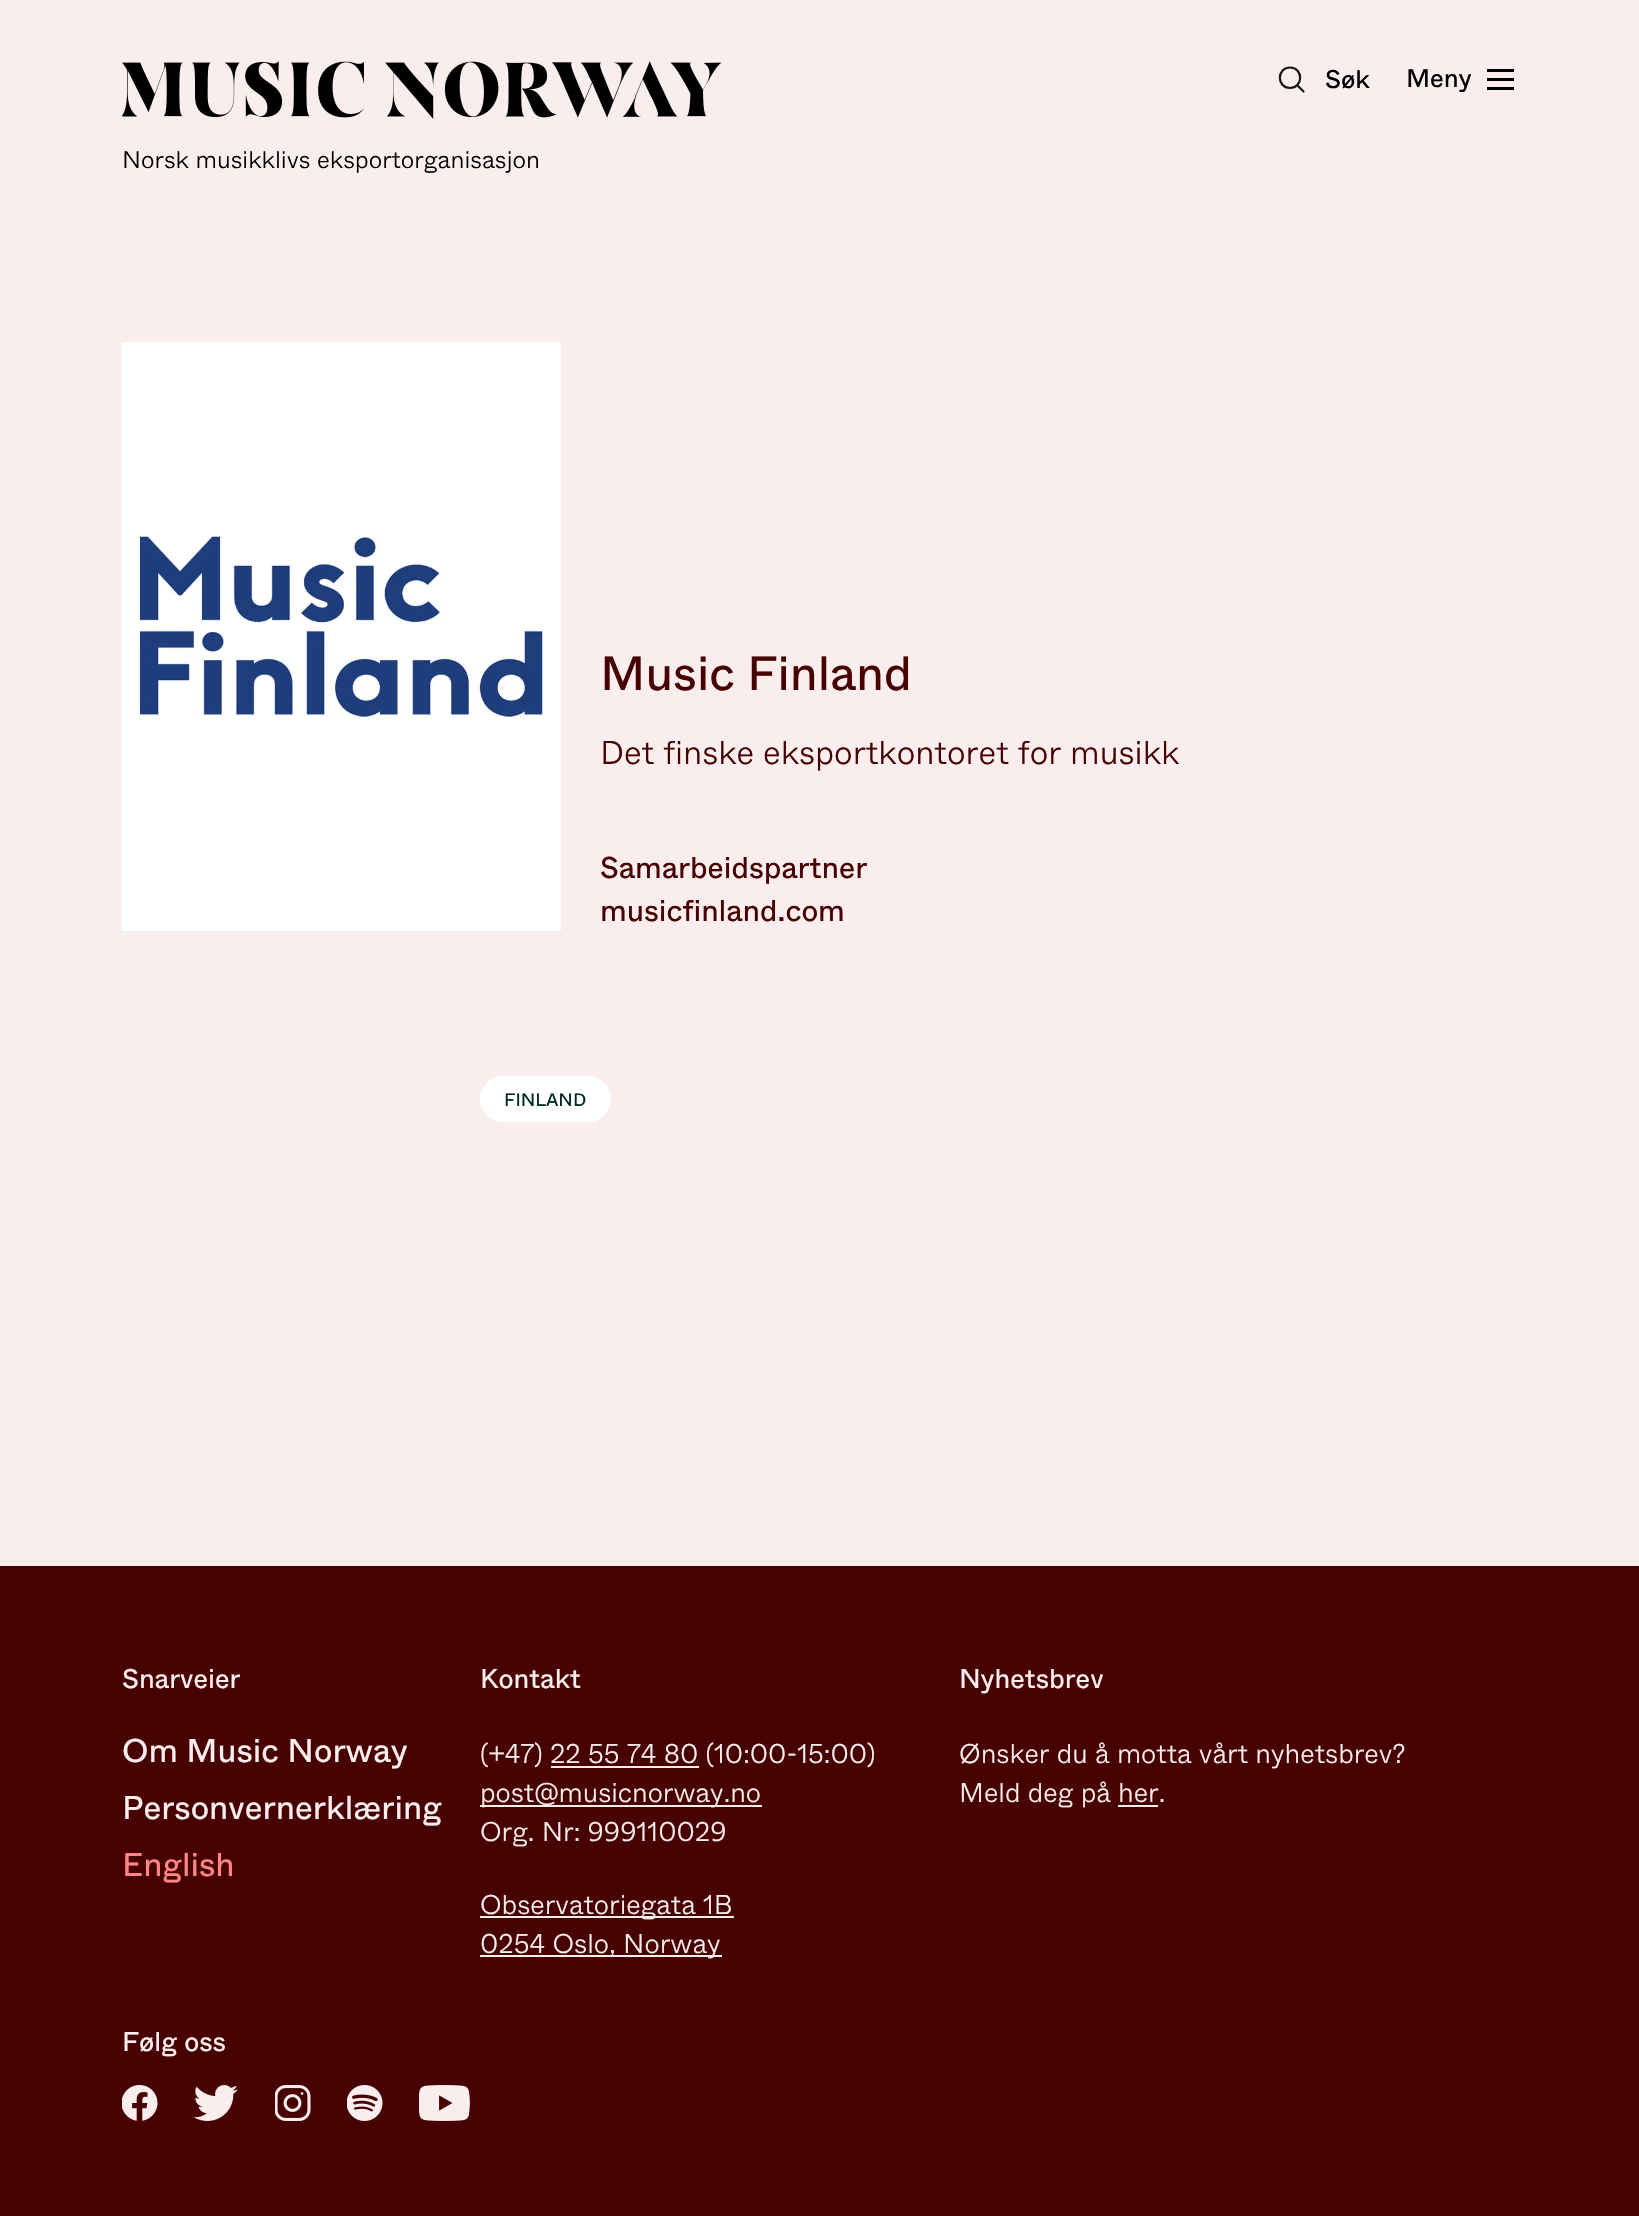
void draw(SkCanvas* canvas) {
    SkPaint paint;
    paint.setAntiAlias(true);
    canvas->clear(0xFFFAEDED);
    paint.setStyle(SkPaint::kStroke_Style);
    paint.setStrokeWidth(2.2f);
    paint.setStrokeCap(SkPaint::kRound_Cap);
    paint.setStrokeJoin(SkPaint::kRound_Join);
    paint.setColor(0xFF141414);
    canvas->drawPath(SkPathBuilder().moveTo(1290, 88).cubicTo(1303.5f, 88, 1303.5f, 67.5f, 1290, 67.5f).cubicTo(1276.5f, 67.5f, 1276.5f, 88, 1290, 88).close().moveTo(1303.5f, 91.5f).lineTo(1297, 85).detach(), paint);
    SkFont font1(fontMgr->matchFamilyStyle("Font", SkFontStyle::Normal()), 25.5f);
    font1.setSubpixel(true);
    paint.setStyle(SkPaint::kFill_Style);
    paint.setColor(0xFF000000);
    canvas->drawString("Søk", 1325, 88, font1, paint);
    canvas->drawString("Meny", 1406, 87, font1, paint);
    canvas->drawRect(SkRect::MakeXYWH(1487, 69, 27, 3), paint);
    canvas->drawRect(SkRect::MakeXYWH(1487, 78, 27, 3), paint);
    canvas->drawRect(SkRect::MakeXYWH(1487, 87, 27, 3), paint);
    canvas->drawImageRect(SkImages::DeferredFromEncodedData(SkData::MakeFromFileName("img1.png")), SkRect::MakeXYWH(122, 61, 600, 58), SkSamplingOptions());
    SkFont font2(fontMgr->matchFamilyStyle("Font", SkFontStyle(300, SkFontStyle::kNormal_Width, SkFontStyle::kUpright_Slant)), 24);
    font2.setSubpixel(true);
    canvas->drawString("Norsk musikklivs eksportorganisasjon", 122, 168, font2, paint);
    paint.setColor(0xFFE0D5D5);
    canvas->drawRect(SkRect::MakeXYWH(122, 931, 439, 1), paint);
    canvas->drawImageRect(SkImages::DeferredFromEncodedData(SkData::MakeFromFileName("img2.png")), SkRect::MakeXYWH(121, 342, 440, 590), SkSamplingOptions());
    SkFont font3(fontMgr->matchFamilyStyle("Font", SkFontStyle::Normal()), 48);
    font3.setSubpixel(true);
    paint.setColor(0xFF460100);
    canvas->drawString("Music Finland", 600, 690, font3, paint);
    SkFont font4(fontMgr->matchFamilyStyle("Font", SkFontStyle(300, SkFontStyle::kNormal_Width, SkFontStyle::kUpright_Slant)), 33);
    font4.setSubpixel(true);
    canvas->drawString("Det finske eksportkontoret for musikk", 600, 764, font4, paint);
    SkFont font5(fontMgr->matchFamilyStyle("Font", SkFontStyle::Normal()), 30);
    font5.setSubpixel(true);
    canvas->drawString("Samarbeidspartner", 600, 878, font5, paint);
    canvas->drawString("musicfinland.com", 600, 921, font5, paint);
    paint.setColor(0xFFFFFFFF);
    canvas->drawRoundRect(SkRect::MakeXYWH(480, 1076, 131, 46), 23, 23, paint);
    SkFont font6(fontMgr->matchFamilyStyle("Font", SkFontStyle::Normal()), 18);
    font6.setSubpixel(true);
    paint.setColor(0xFF002B25);
    canvas->drawString("FINLAND", 504, 1106, font6, paint);
    paint.setColor(0xFF460100);
    canvas->drawRect(SkRect::MakeXYWH(0, 1566, 1639, 650), paint);
    SkFont font7(fontMgr->matchFamilyStyle("Font", SkFontStyle::Normal()), 27);
    font7.setSubpixel(true);
    paint.setColor(0xFFFAEDED);
    canvas->drawString("Snarveier", 122, 1688, font7, paint);
    SkFont font8(fontMgr->matchFamilyStyle("Font", SkFontStyle::Normal()), 33);
    font8.setSubpixel(true);
    canvas->drawString("Om Music Norway", 122, 1762, font8, paint);
    canvas->drawString("Personvernerklæring", 122, 1819, font8, paint);
    paint.setColor(0xFFFD8584);
    canvas->drawString("English", 122, 1876, font8, paint);
    paint.setColor(0xFFFAEDED);
    canvas->drawString("Kontakt", 480, 1688, font7, paint);
    SkFont font9(fontMgr->matchFamilyStyle("Font", SkFontStyle(300, SkFontStyle::kNormal_Width, SkFontStyle::kUpright_Slant)), 27);
    font9.setSubpixel(true);
    canvas->drawString("(+47) 22 55 74 80 (10:00-15:00)", 480, 1763, font9, paint);
    canvas->drawRect(SkRect::MakeXYWH(551, 1766, 148, 2), paint);
    canvas->drawRect(SkRect::MakeXYWH(480, 1805, 282, 2), paint);
    canvas->drawString("post@musicnorway.no", 480, 1802, font9, paint);
    canvas->drawString("Org. Nr: 999110029", 480, 1841, font9, paint);
    canvas->drawRect(SkRect::MakeXYWH(480, 1916, 254, 2), paint);
    canvas->drawString("Observatoriegata 1B", 480, 1914, font9, paint);
    canvas->drawRect(SkRect::MakeXYWH(480, 1955, 242, 2), paint);
    canvas->drawString("0254 Oslo, Norway", 480, 1953, font9, paint);
    canvas->drawString("Nyhetsbrev", 959, 1688, font7, paint);
    canvas->drawString("Ønsker du å motta vårt nyhetsbrev?", 959, 1763, font9, paint);
    canvas->drawString("Meld deg på her.", 959, 1802, font9, paint);
    canvas->drawRect(SkRect::MakeXYWH(1118, 1805, 40, 2), paint);
    canvas->drawString("Følg oss", 122, 2051, font7, paint);
    canvas->drawImageRect(SkImages::DeferredFromEncodedData(SkData::MakeFromFileName("img3.png")), SkRect::MakeXYWH(122, 2085, 36, 36), SkSamplingOptions());
    canvas->drawImageRect(SkImages::DeferredFromEncodedData(SkData::MakeFromFileName("img4.png")), SkRect::MakeXYWH(194, 2085, 44, 36), SkSamplingOptions());
    canvas->drawImageRect(SkImages::DeferredFromEncodedData(SkData::MakeFromFileName("img5.png")), SkRect::MakeXYWH(275, 2085, 36, 36), SkSamplingOptions());
    canvas->drawImageRect(SkImages::DeferredFromEncodedData(SkData::MakeFromFileName("img6.png")), SkRect::MakeXYWH(347, 2085, 36, 36), SkSamplingOptions());
    canvas->drawImageRect(SkImages::DeferredFromEncodedData(SkData::MakeFromFileName("img7.png")), SkRect::MakeXYWH(419, 2085, 51, 36), SkSamplingOptions());
}
